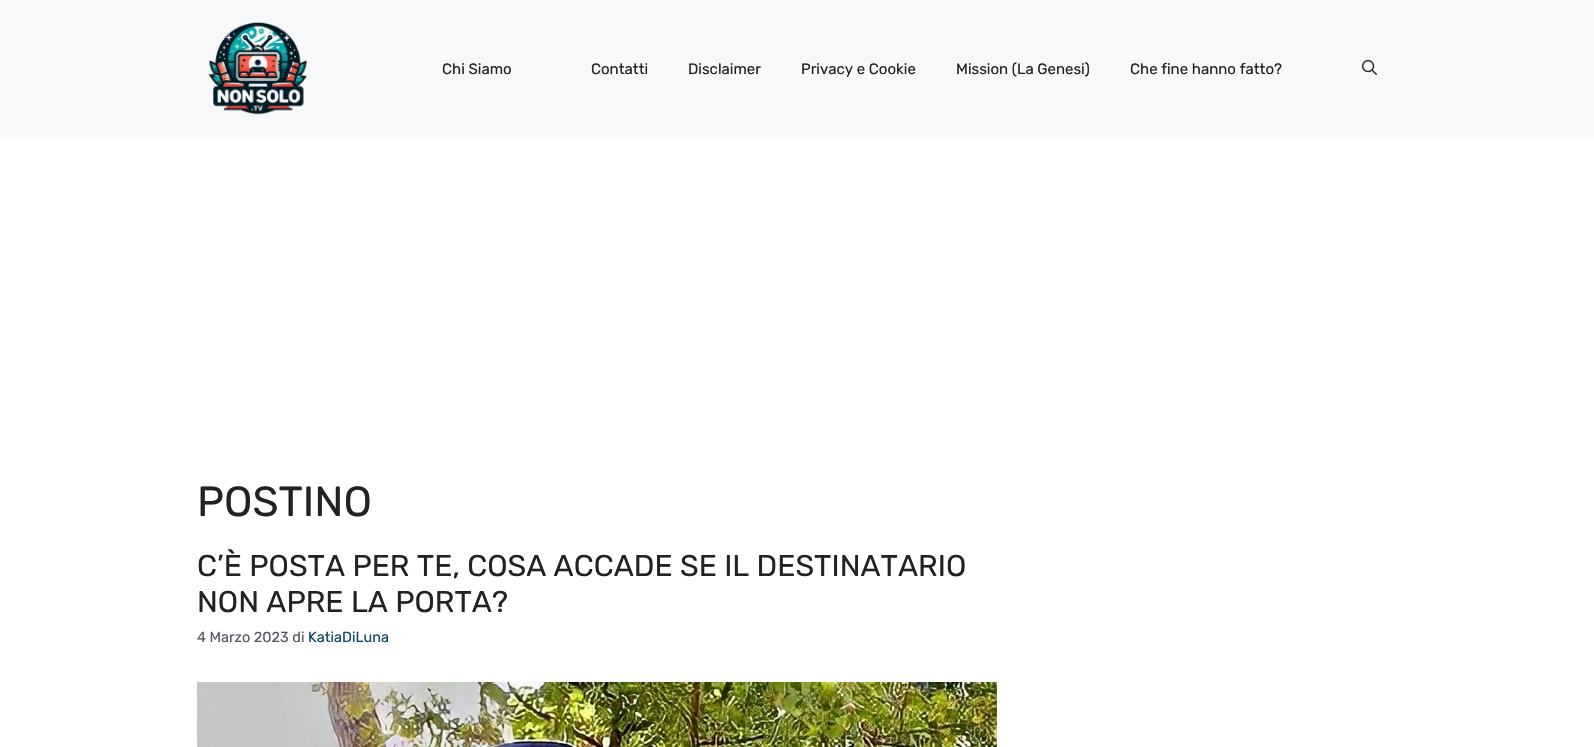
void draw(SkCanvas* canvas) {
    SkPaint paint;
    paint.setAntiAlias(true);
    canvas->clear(0xFFFFFFFF);
    paint.setColor(0xFFF7F8F9);
    canvas->drawRect(SkRect::MakeXYWH(0, 0, 1594, 137), paint);
    canvas->drawImageRect(SkImages::DeferredFromEncodedData(SkData::MakeFromFileName("img1.png")), SkRect::MakeXYWH(208, 22, 100, 93), SkSamplingOptions());
    SkFont font1(fontMgr->matchFamilyStyle("Rubik", SkFontStyle::Normal()), 15);
    font1.setSubpixel(true);
    paint.setColor(0xFF222222);
    canvas->drawString("Chi Siamo", 442, 74, font1, paint);
    canvas->drawString("Contatti", 591, 74, font1, paint);
    canvas->drawString("Disclaimer", 688, 74, font1, paint);
    canvas->drawString("Privacy e Cookie", 801, 74, font1, paint);
    canvas->drawString("Mission (La Genesi)", 956, 74, font1, paint);
    canvas->drawString("Che fine hanno fatto?", 1130, 74, font1, paint);
    canvas->drawImageRect(SkImages::DeferredFromEncodedData(SkData::MakeFromFileName("img2.png")), SkRect::MakeXYWH(1362, 60, 15, 15), SkSamplingOptions());
    SkFont font2(fontMgr->matchFamilyStyle("Rubik", SkFontStyle::Normal()), 42);
    font2.setSubpixel(true);
    canvas->drawString("POSTINO", 197, 516, font2, paint);
    SkFont font3(fontMgr->matchFamilyStyle("Rubik", SkFontStyle::Normal()), 30);
    font3.setSubpixel(true);
    canvas->drawString("C’È POSTA PER TE, COSA ACCADE SE IL DESTINATARIO", 197, 576, font3, paint);
    canvas->drawString("NON APRE LA PORTA?", 197, 612, font3, paint);
    SkFont font4(fontMgr->matchFamilyStyle("Rubik", SkFontStyle::Normal()), 14.5f);
    font4.setSubpixel(true);
    paint.setColor(0xFF575760);
    canvas->drawString("4 Marzo 2023 di", 197, 642, font4, paint);
    paint.setColor(0xFF0C4767);
    canvas->drawString("KatiaDiLuna", 308, 642, font4, paint);
    canvas->drawImageRect(SkImages::DeferredFromEncodedData(SkData::MakeFromFileName("img3.png")), SkRect::MakeXYWH(197, 682, 800, 65), SkSamplingOptions());
}
